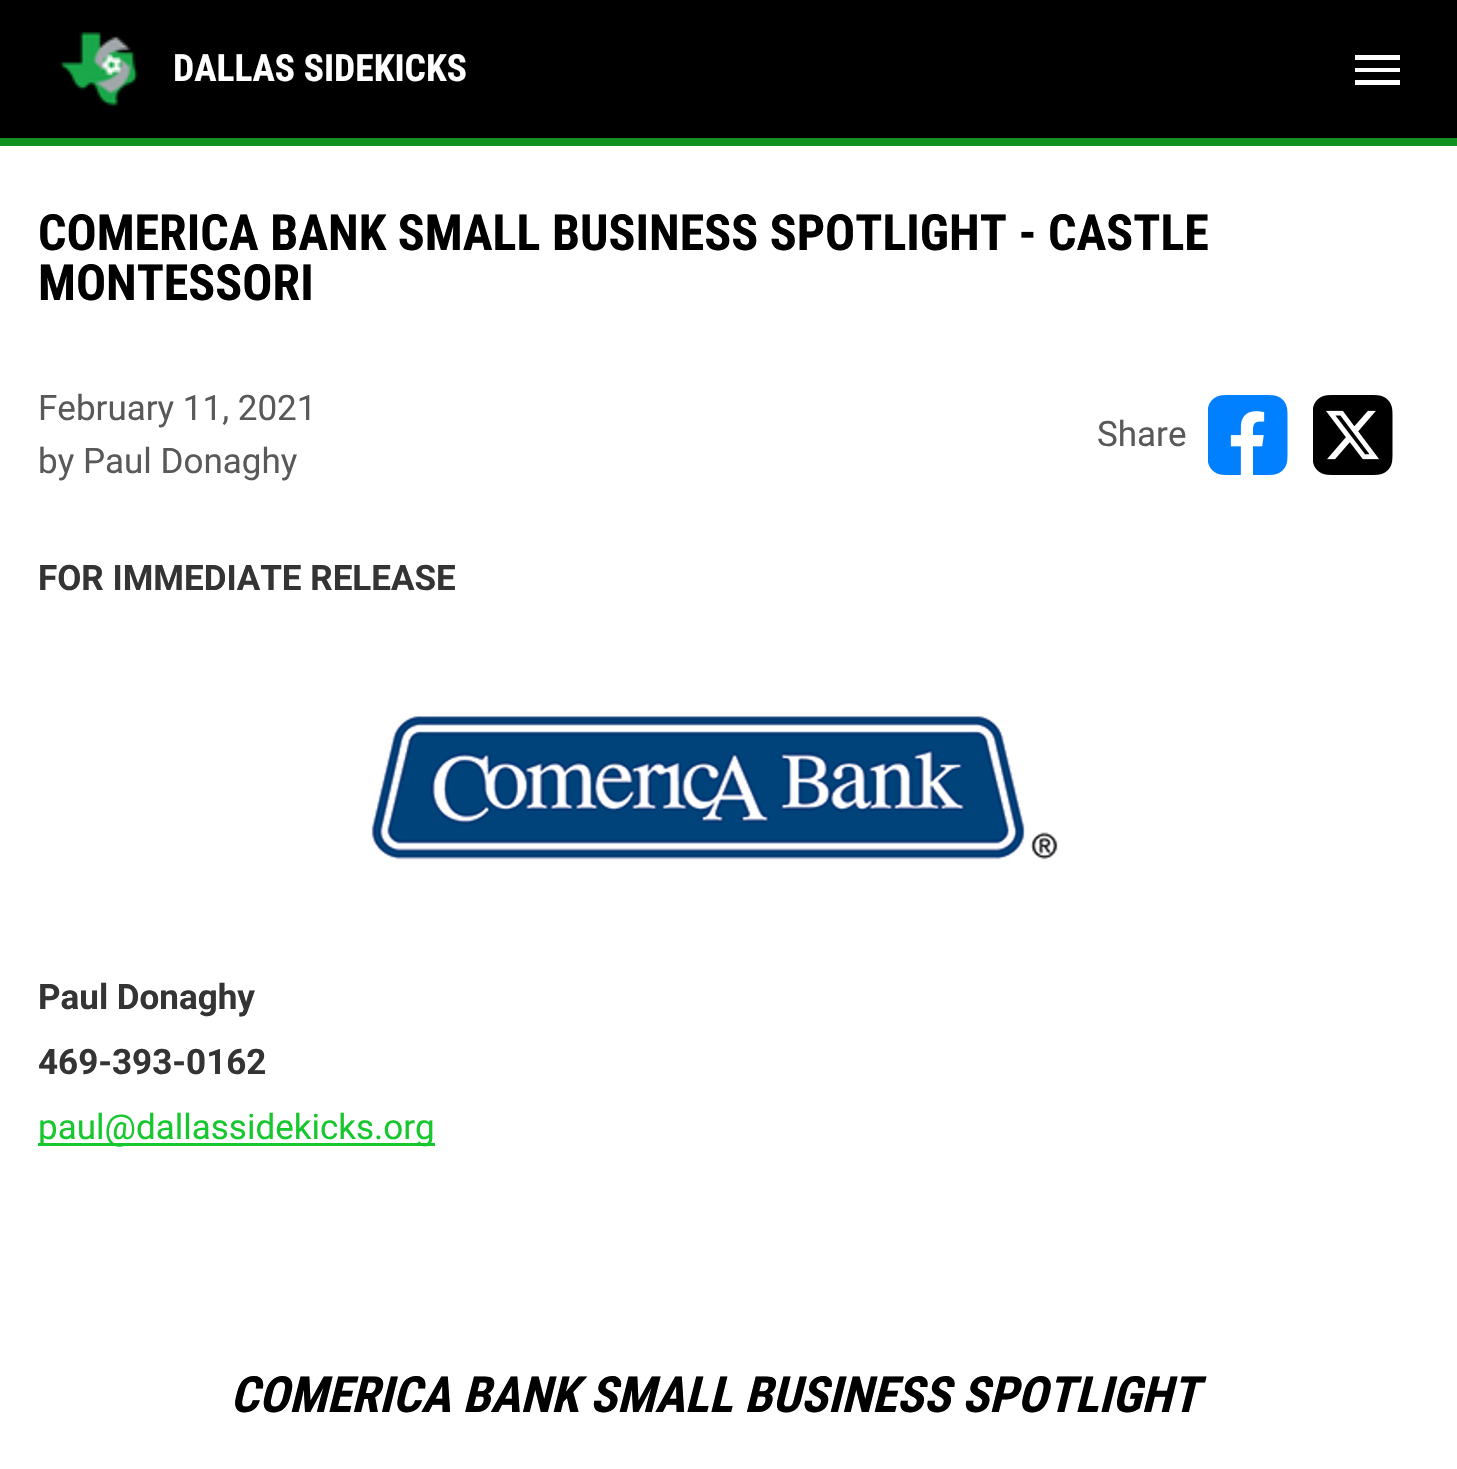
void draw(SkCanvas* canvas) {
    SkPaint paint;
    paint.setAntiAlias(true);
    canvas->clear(0xFFFFFFFF);
    paint.setColor(0xFF000000);
    canvas->drawRect(SkRect::MakeXYWH(0, 0, 1457, 138), paint);
    canvas->drawImageRect(SkImages::DeferredFromEncodedData(SkData::MakeFromFileName("img1.png")), SkRect::MakeXYWH(59, 31, 80, 75), SkSamplingOptions());
    SkFont font1(fontMgr->matchFamilyStyle("Roboto Condensed", SkFontStyle::Bold()), 37.5f);
    font1.setSubpixel(true);
    paint.setColor(0xFFFFFFFF);
    canvas->drawString("DALLAS SIDEKICKS", 173, 81, font1, paint);
    canvas->drawPath(SkPathBuilder().moveTo(1355, 55).lineTo(1400, 55).lineTo(1400, 60).lineTo(1355, 60).close().moveTo(1355, 72).lineTo(1355, 68).lineTo(1400, 68).lineTo(1400, 72).close().moveTo(1355, 85).lineTo(1355, 80).lineTo(1400, 80).lineTo(1400, 85).close().detach(), paint);
    paint.setColor(0xFF109121);
    canvas->drawRect(SkRect::MakeXYWH(0, 138, 1457, 8), paint);
    SkFont font2(fontMgr->matchFamilyStyle("Roboto Condensed", SkFontStyle::Bold()), 50);
    font2.setSubpixel(true);
    paint.setColor(0xFF000000);
    canvas->drawString("COMERICA BANK SMALL BUSINESS SPOTLIGHT - CASTLE", 38, 250, font2, paint);
    canvas->drawString("MONTESSORI", 38, 300, font2, paint);
    SkFont font3(fontMgr->matchFamilyStyle("Roboto", SkFontStyle::Normal()), 35);
    font3.setSubpixel(true);
    paint.setColor(0xFF595959);
    canvas->drawString("February 11, 2021", 38, 420, font3, paint);
    canvas->drawString("by Paul Donaghy", 38, 473, font3, paint);
    canvas->drawString("Share", 1097, 446, font3, paint);
    canvas->drawImageRect(SkImages::DeferredFromEncodedData(SkData::MakeFromFileName("img2.png")), SkRect::MakeXYWH(1208, 395, 80, 80), SkSamplingOptions());
    canvas->drawImageRect(SkImages::DeferredFromEncodedData(SkData::MakeFromFileName("img3.png")), SkRect::MakeXYWH(1313, 395, 80, 80), SkSamplingOptions());
    SkFont font4(fontMgr->matchFamilyStyle("Roboto", SkFontStyle::Bold()), 35);
    font4.setSubpixel(true);
    paint.setColor(0xFF343434);
    canvas->drawString("FOR IMMEDIATE RELEASE", 38, 590, font4, paint);
    canvas->drawImageRect(SkImages::DeferredFromEncodedData(SkData::MakeFromFileName("img4.png")), SkRect::MakeXYWH(371, 716, 687, 144), SkSamplingOptions());
    canvas->drawString("Paul Donaghy", 38, 1009, font4, paint);
    canvas->drawString("469-393-0162", 38, 1074, font4, paint);
    paint.setColor(0xFF16C72E);
    canvas->drawRect(SkRect::MakeXYWH(38, 1143, 397, 3), paint);
    canvas->drawString("paul@dallassidekicks.org", 38, 1139, font3, paint);
    SkFont font5(fontMgr->matchFamilyStyle("Roboto Condensed", SkFontStyle::BoldItalic()), 50);
    font5.setSubpixel(true);
    paint.setColor(0xFF000000);
    canvas->drawString("COMERICA BANK SMALL BUSINESS SPOTLIGHT", 230, 1412, font5, paint);
}
